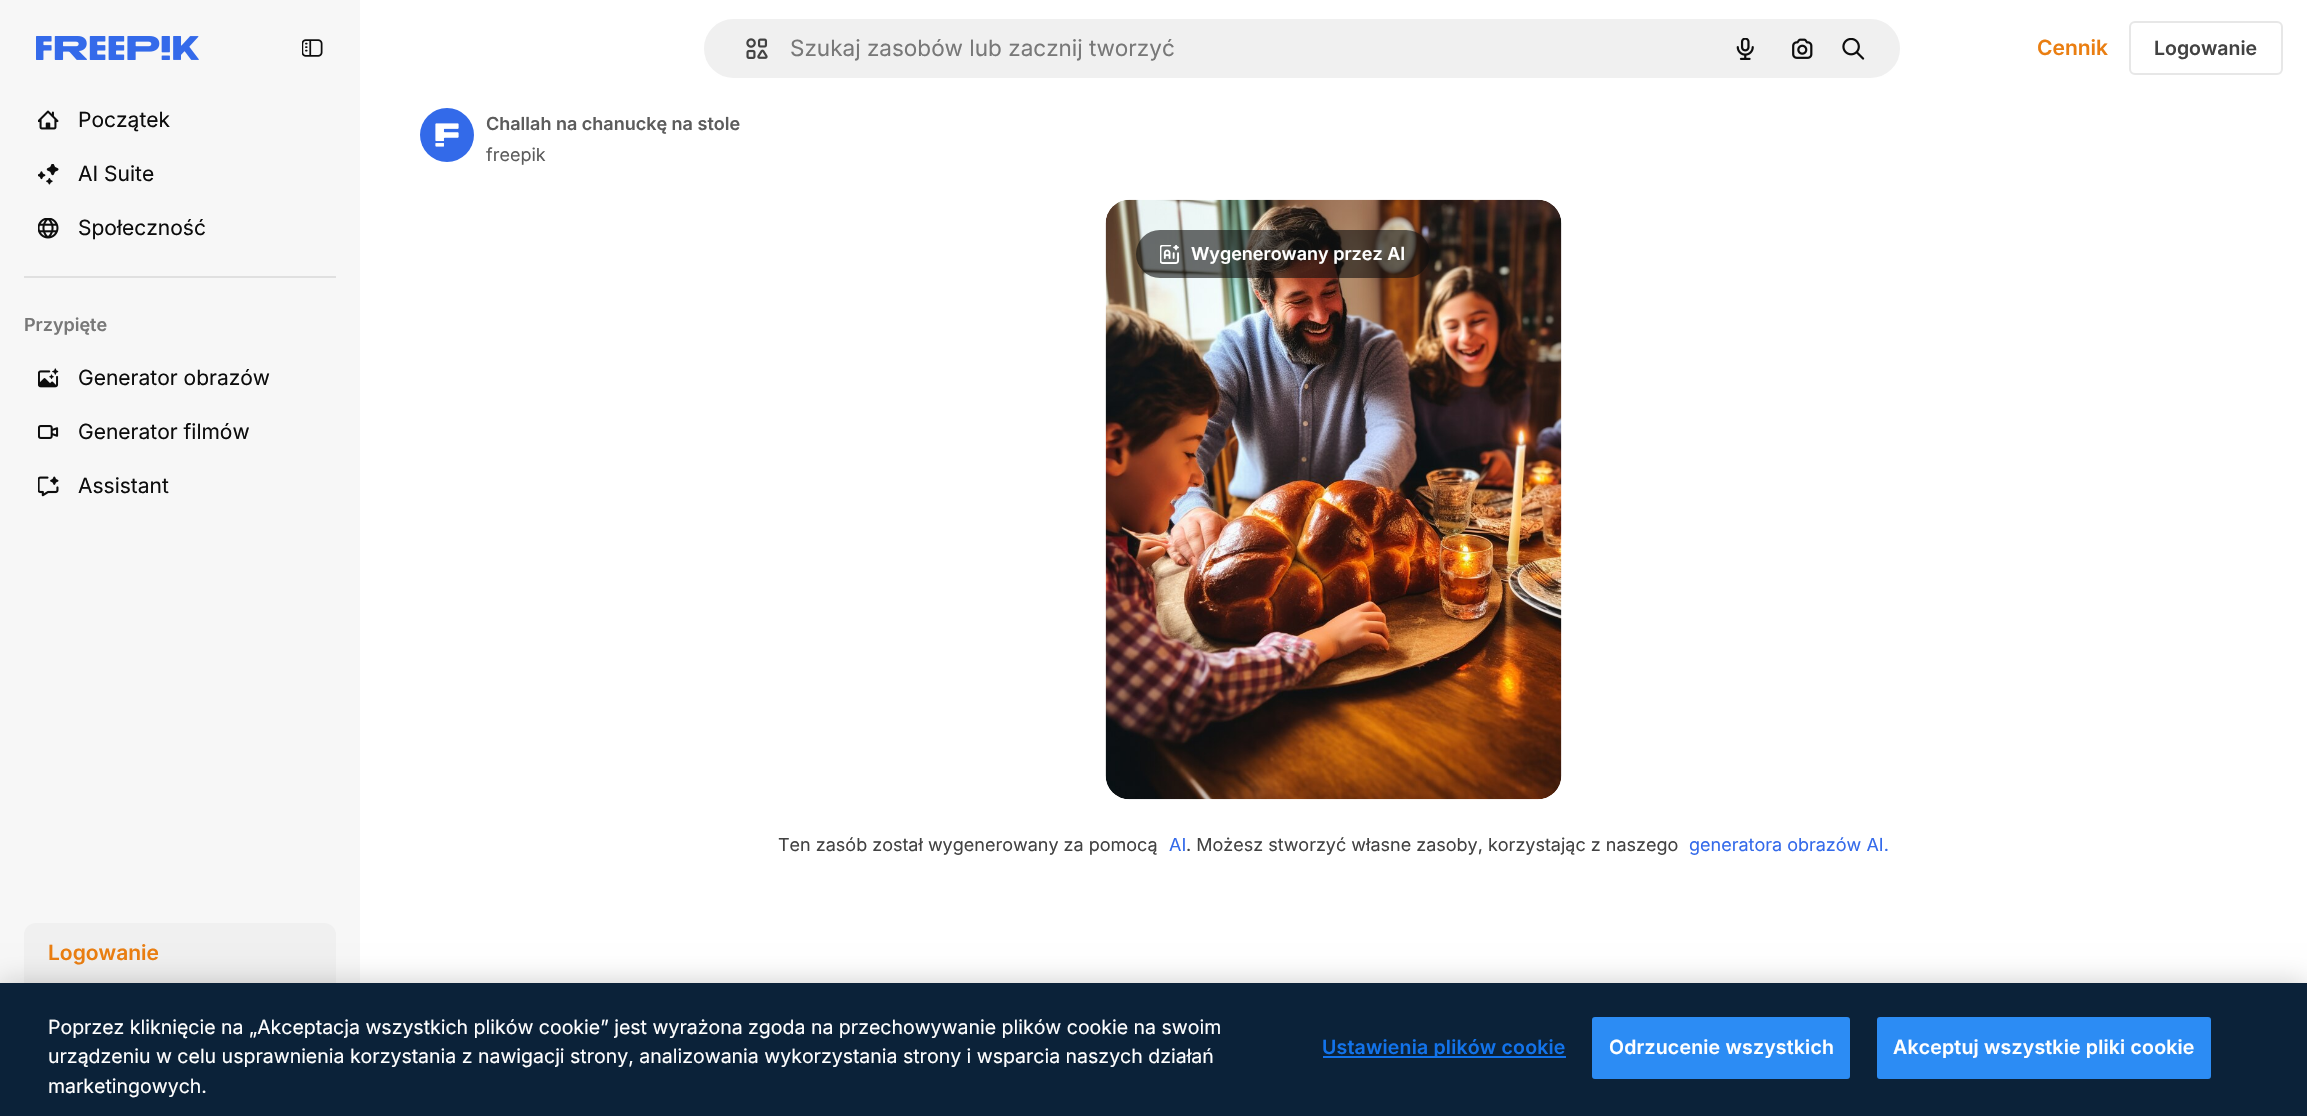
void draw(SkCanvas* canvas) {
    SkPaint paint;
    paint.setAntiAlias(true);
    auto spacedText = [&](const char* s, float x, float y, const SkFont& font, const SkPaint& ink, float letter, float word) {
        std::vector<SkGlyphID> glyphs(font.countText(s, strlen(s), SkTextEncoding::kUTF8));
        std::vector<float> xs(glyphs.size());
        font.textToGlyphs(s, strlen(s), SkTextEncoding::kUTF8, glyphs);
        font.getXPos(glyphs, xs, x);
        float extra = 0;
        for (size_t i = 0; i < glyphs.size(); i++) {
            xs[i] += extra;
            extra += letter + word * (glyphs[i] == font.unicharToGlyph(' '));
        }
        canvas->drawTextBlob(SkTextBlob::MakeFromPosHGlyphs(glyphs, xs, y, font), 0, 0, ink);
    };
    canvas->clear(0xFFFFFFFF);
    paint.setColor(0xFFF7F7F7);
    canvas->drawRect(SkRect::MakeXYWH(0, 0, 360, 983), paint);
    canvas->drawImageRect(SkImages::DeferredFromEncodedData(SkData::MakeFromFileName("img1.png")), SkRect::MakeXYWH(36, 36, 163, 24), SkSamplingOptions());
    canvas->drawImageRect(SkImages::DeferredFromEncodedData(SkData::MakeFromFileName("img2.png")), SkRect::MakeXYWH(302, 39, 21, 18), SkSamplingOptions());
    canvas->drawImageRect(SkImages::DeferredFromEncodedData(SkData::MakeFromFileName("img3.png")), SkRect::MakeXYWH(38, 110, 21, 20), SkSamplingOptions());
    SkFont font1(fontMgr->matchFamilyStyle("Inter", SkFontStyle::Normal()), 21);
    font1.setSubpixel(true);
    paint.setColor(0xFF0D0D0D);
    canvas->drawString("Początek", 78, 127, font1, paint);
    canvas->drawImageRect(SkImages::DeferredFromEncodedData(SkData::MakeFromFileName("img4.png")), SkRect::MakeXYWH(38, 164, 21, 21), SkSamplingOptions());
    canvas->drawString("AI Suite", 78, 181, font1, paint);
    canvas->drawImageRect(SkImages::DeferredFromEncodedData(SkData::MakeFromFileName("img5.png")), SkRect::MakeXYWH(38, 218, 21, 21), SkSamplingOptions());
    canvas->drawString("Społeczność", 78, 235, font1, paint);
    paint.setColor(0xFFE0E0E0);
    canvas->drawRect(SkRect::MakeXYWH(24, 276, 312, 2), paint);
    SkFont font2(fontMgr->matchFamilyStyle("Inter", SkFontStyle(600, SkFontStyle::kNormal_Width, SkFontStyle::kUpright_Slant)), 18);
    font2.setSubpixel(true);
    paint.setColor(0xFF787878);
    canvas->drawString("Przypięte", 24, 331, font2, paint);
    canvas->drawImageRect(SkImages::DeferredFromEncodedData(SkData::MakeFromFileName("img6.png")), SkRect::MakeXYWH(38, 368, 21, 20), SkSamplingOptions());
    paint.setColor(0xFF0D0D0D);
    canvas->drawString("Generator obrazów", 78, 385, font1, paint);
    canvas->drawImageRect(SkImages::DeferredFromEncodedData(SkData::MakeFromFileName("img7.png")), SkRect::MakeXYWH(38, 425, 21, 14), SkSamplingOptions());
    canvas->drawString("Generator filmów", 78, 439, font1, paint);
    canvas->drawImageRect(SkImages::DeferredFromEncodedData(SkData::MakeFromFileName("img8.png")), SkRect::MakeXYWH(38, 476, 21, 21), SkSamplingOptions());
    canvas->drawString("Assistant", 78, 493, font1, paint);
    paint.setColor(0xFFF0F0F0);
    canvas->drawRoundRect(SkRect::MakeXYWH(24, 923, 312, 97), 12, 12, paint);
    SkFont font3(fontMgr->matchFamilyStyle("Inter", SkFontStyle(600, SkFontStyle::kNormal_Width, SkFontStyle::kUpright_Slant)), 21);
    font3.setSubpixel(true);
    paint.setColor(0xFFEA7E11);
    canvas->drawString("Logowanie", 48, 960, font3, paint);
    paint.setColor(0xFFF0F0F0);
    canvas->drawRoundRect(SkRect::MakeXYWH(703, 18, 1198, 61), 30.5f, 30.5f, paint);
    paint.setStyle(SkPaint::kStroke_Style);
    paint.setStrokeWidth(2);
    paint.setColor(0xFFFFFFFF);
    canvas->drawRoundRect(SkRect::MakeXYWH(703, 18, 1198, 61), 30.5f, 30.5f, paint);
    canvas->drawImageRect(SkImages::DeferredFromEncodedData(SkData::MakeFromFileName("img9.png")), SkRect::MakeXYWH(746, 38, 22, 21), SkSamplingOptions());
    SkFont font4(fontMgr->matchFamilyStyle("Inter", SkFontStyle::Normal()), 22.5f);
    font4.setSubpixel(true);
    paint.setStyle(SkPaint::kFill_Style);
    paint.setColor(0xFF787878);
    canvas->drawString("Szukaj zasobów lub zacznij tworzyć", 790, 56, font4, paint);
    canvas->drawImageRect(SkImages::DeferredFromEncodedData(SkData::MakeFromFileName("img10.png")), SkRect::MakeXYWH(1736, 38, 18, 22), SkSamplingOptions());
    canvas->drawImageRect(SkImages::DeferredFromEncodedData(SkData::MakeFromFileName("img11.png")), SkRect::MakeXYWH(1792, 38, 21, 21), SkSamplingOptions());
    canvas->drawImageRect(SkImages::DeferredFromEncodedData(SkData::MakeFromFileName("img12.png")), SkRect::MakeXYWH(1842, 38, 23, 22), SkSamplingOptions());
    paint.setColor(0xFFEA7E11);
    canvas->drawString("Cennik", 2037, 55, font3, paint);
    paint.setStyle(SkPaint::kStroke_Style);
    paint.setColor(0xFFE7E7E7);
    canvas->drawRoundRect(SkRect::MakeXYWH(2130, 22, 152, 52), 5, 5, paint);
    SkFont font5(fontMgr->matchFamilyStyle("Inter", SkFontStyle(600, SkFontStyle::kNormal_Width, SkFontStyle::kUpright_Slant)), 19.5f);
    font5.setSubpixel(true);
    paint.setStyle(SkPaint::kFill_Style);
    paint.setColor(0xFF424242);
    canvas->drawString("Logowanie", 2154, 55, font5, paint);
    canvas->drawImageRect(SkImages::DeferredFromEncodedData(SkData::MakeFromFileName("img13.png")), SkRect::MakeXYWH(420, 108, 54, 54), SkSamplingOptions());
    paint.setColor(0xFF5C5C5C);
    canvas->drawString("Challah na chanuckę na stole", 486, 130, font2, paint);
    SkFont font6(fontMgr->matchFamilyStyle("Inter", SkFontStyle::Normal()), 18);
    font6.setSubpixel(true);
    canvas->drawString("freepik", 486, 161, font6, paint);
    canvas->drawImageRect(SkImages::DeferredFromEncodedData(SkData::MakeFromFileName("img14.png")), SkRect::MakeXYWH(1105, 199, 457, 601), SkSamplingOptions());
    paint.setColor(0x990D0D0D);
    canvas->drawRoundRect(SkRect::MakeXYWH(1136, 230, 294, 48), 24, 24, paint);
    canvas->drawImageRect(SkImages::DeferredFromEncodedData(SkData::MakeFromFileName("img15.png")), SkRect::MakeXYWH(1160, 245, 19, 19), SkSamplingOptions());
    paint.setColor(0xFFFFFFFF);
    canvas->drawString("Wygenerowany przez AI", 1191, 260, font2, paint);
    paint.setColor(0xFF424242);
    canvas->drawString("Ten zasób został wygenerowany za pomocą", 778, 851, font6, paint);
    paint.setColor(0xFF346AEA);
    canvas->drawString("AI", 1169, 851, font6, paint);
    paint.setColor(0xFF424242);
    canvas->drawString(". Możesz stworzyć własne zasoby, korzystając z naszego", 1186, 851, font6, paint);
    paint.setColor(0xFF346AEA);
    canvas->drawString("generatora obrazów AI.", 1689, 851, font6, paint);
    paint.setColor(0x33000000);
    paint.setMaskFilter(SkMaskFilter::MakeBlur(kNormal_SkBlurStyle, 13.5f));
    canvas->drawRect(SkRect::MakeXYWH(0, 983, 2307, 133), paint);
    paint.setMaskFilter(nullptr);
    paint.setColor(0xFF0B2239);
    canvas->drawRect(SkRect::MakeXYWH(0, 983, 2307, 133), paint);
    SkFont font7(fontMgr->matchFamilyStyle("Inter", SkFontStyle::Normal()), 19.5f);
    font7.setSubpixel(true);
    paint.setColor(0xFFFFFFFF);
    canvas->drawString("Poprzez kliknięcie na „Akceptacja wszystkich plików cookie” jest wyrażona zgoda na przechowywanie plików cookie na swoim", 48, 1034, font7, paint);
    canvas->drawString("urządzeniu w celu usprawnienia korzystania z nawigacji strony, analizowania wykorzystania strony i wsparcia naszych działań", 48, 1063, font7, paint);
    canvas->drawString("marketingowych.", 48, 1093, font7, paint);
    paint.setColor(0xFF1273EB);
    canvas->drawRect(SkRect::MakeXYWH(1323, 1056, 243, 2), paint);
    spacedText("Ustawienia plików cookie", 1322, 1054, font5, paint, 0.2f, 0);
    paint.setColor(0xFF2C8CF4);
    canvas->drawRoundRect(SkRect::MakeXYWH(1593, 1018, 256, 60), 2, 2, paint);
    paint.setStyle(SkPaint::kStroke_Style);
    canvas->drawRoundRect(SkRect::MakeXYWH(1593, 1018, 256, 60), 2, 2, paint);
    paint.setStyle(SkPaint::kFill_Style);
    paint.setColor(0xFFFFFFFF);
    spacedText("Odrzucenie wszystkich", 1609, 1054, font5, paint, 0.2f, 0);
    paint.setColor(0xFF2C8CF4);
    canvas->drawRoundRect(SkRect::MakeXYWH(1878, 1018, 332, 60), 2, 2, paint);
    paint.setStyle(SkPaint::kStroke_Style);
    canvas->drawRoundRect(SkRect::MakeXYWH(1878, 1018, 332, 60), 2, 2, paint);
    paint.setStyle(SkPaint::kFill_Style);
    paint.setColor(0xFFFFFFFF);
    spacedText("Akceptuj wszystkie pliki cookie", 1893, 1054, font5, paint, 0.2f, 0);
}
